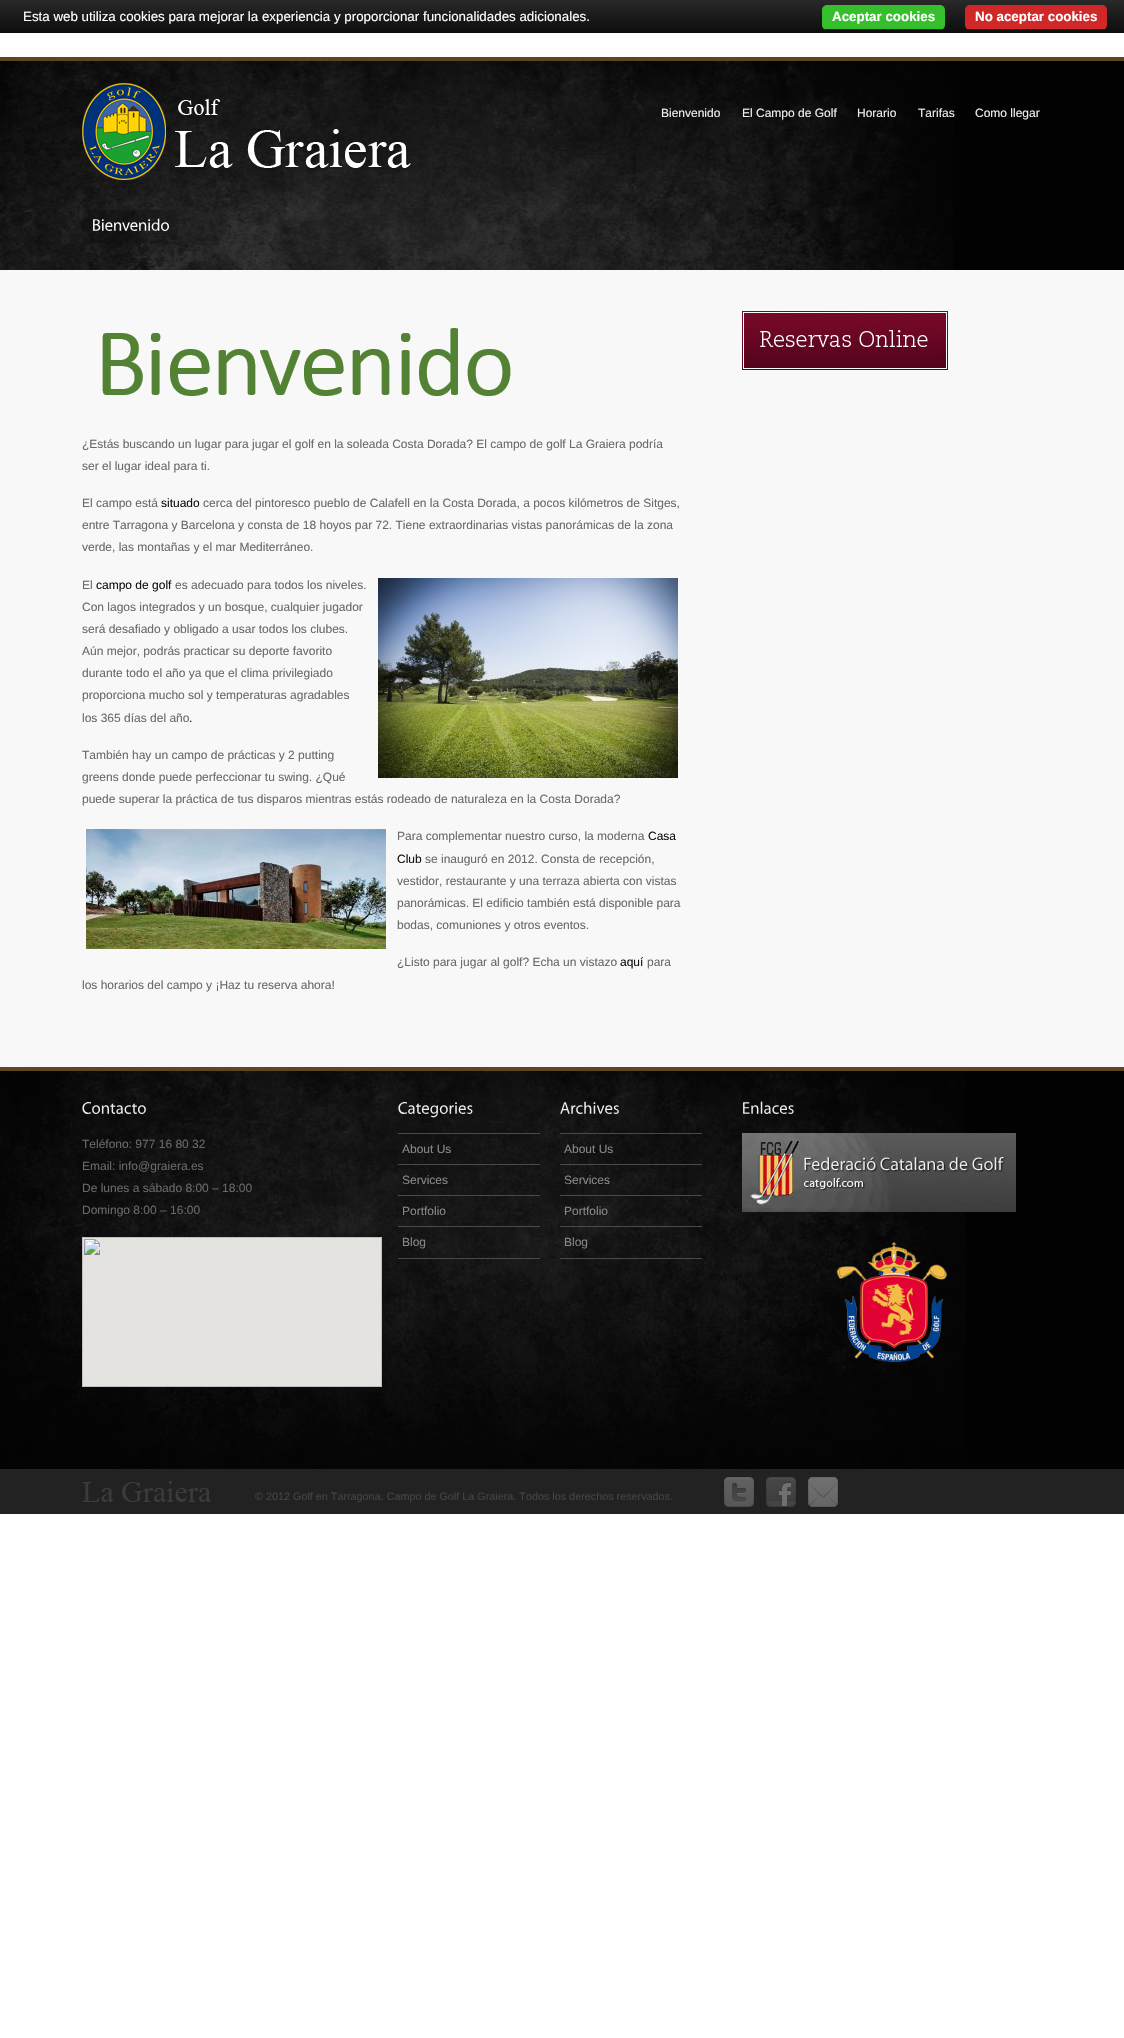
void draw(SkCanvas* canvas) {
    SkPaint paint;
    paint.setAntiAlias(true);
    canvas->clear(0xFFFFFFFF);
    {
        const SkColor colors[] = {0xFF292929, 0xFF0D0D0D};
        const float stops[] = {0, 1};
        const SkPoint ends[] = {{565, 0}, {565, 33}};
        paint.setShader(SkGradientShader::MakeLinear(ends, colors, stops, 2, SkTileMode::kClamp));
        paint.setAlpha(255);
    }
    canvas->drawRect(SkRect::MakeXYWH(0, 0, 1124, 33), paint);
    SkFont font1(fontMgr->matchFamilyStyle("Liberation Sans", SkFontStyle::Normal()), 13.35f);
    font1.setSubpixel(true);
    paint.setShader(nullptr);
    paint.setColor(0xFFFFFFFF);
    canvas->drawString("Esta web utiliza cookies para mejorar la experiencia y proporcionar funcionalidades adicionales.", 23, 21, font1, paint);
    paint.setColor(0xFF36BF2D);
    canvas->drawRoundRect(SkRect::MakeXYWH(822, 5, 123, 25), 5, 5, paint);
    paint.setColor(0xFF222222);
    canvas->drawRect(SkRect::MakeXYWH(825, 29, 118, 1), paint);
    SkFont font2(fontMgr->matchFamilyStyle("Liberation Sans", SkFontStyle::Bold()), 13.35f);
    font2.setSubpixel(true);
    paint.setColor(0xFFFFFFFF);
    canvas->drawString("Aceptar cookies", 832, 21, font2, paint);
    paint.setColor(0xFFD02828);
    canvas->drawRoundRect(SkRect::MakeXYWH(965, 5, 142, 25), 5, 5, paint);
    paint.setColor(0xFF222222);
    canvas->drawRect(SkRect::MakeXYWH(968, 29, 137, 1), paint);
    paint.setColor(0xFFFFFFFF);
    canvas->drawString("No aceptar cookies", 975, 21, font2, paint);
    paint.setColor(0xFF020202);
    canvas->drawRect(SkRect::MakeXYWH(953, 61, 171, 209), paint);
    canvas->drawImageRect(SkImages::DeferredFromEncodedData(SkData::MakeFromFileName("img1.png")), SkRect::MakeXYWH(0, 61, 953, 209), SkSamplingOptions());
    paint.setColor(0xFF5D4622);
    canvas->drawRect(SkRect::MakeXYWH(0, 57, 1124, 4), paint);
    canvas->drawImageRect(SkImages::DeferredFromEncodedData(SkData::MakeFromFileName("img2.png")), SkRect::MakeXYWH(82, 83, 329, 97), SkSamplingOptions());
    SkFont font3(fontMgr->matchFamilyStyle("Liberation Sans", SkFontStyle::Normal()), 12);
    font3.setSubpixel(true);
    paint.setColor(0xFFEEEEEE);
    canvas->drawString("Bienvenido", 661, 117, font3, paint);
    canvas->drawString("El Campo de Golf", 742, 117, font3, paint);
    canvas->drawString("Horario", 857, 117, font3, paint);
    canvas->drawString("Tarifas", 918, 117, font3, paint);
    canvas->drawString("Como llegar", 975, 117, font3, paint);
    canvas->drawImageRect(SkImages::DeferredFromEncodedData(SkData::MakeFromFileName("img3.png")), SkRect::MakeXYWH(82, 210, 91, 34), SkSamplingOptions());
    canvas->drawImageRect(SkImages::DeferredFromEncodedData(SkData::MakeFromFileName("img4.png")), SkRect::MakeXYWH(93, 218, 76, 13), SkSamplingOptions());
    canvas->drawImageRect(SkImages::DeferredFromEncodedData(SkData::MakeFromFileName("img5.png")), SkRect::MakeXYWH(173, 210, 5, 34), SkSamplingOptions());
    paint.setColor(0xFFF8F8F8);
    canvas->drawRect(SkRect::MakeXYWH(0, 270, 1124, 797), paint);
    canvas->drawImageRect(SkImages::DeferredFromEncodedData(SkData::MakeFromFileName("img6.png")), SkRect::MakeXYWH(742, 311, 206, 59), SkSamplingOptions());
    canvas->drawImageRect(SkImages::DeferredFromEncodedData(SkData::MakeFromFileName("img7.png")), SkRect::MakeXYWH(102, 328, 409, 68), SkSamplingOptions());
    paint.setColor(0xFF696969);
    canvas->drawString("¿Estás buscando un lugar para jugar el golf en la soleada Costa Dorada? El campo de golf La Graiera podría", 82, 448, font3, paint);
    canvas->drawString("ser el lugar ideal para ti.", 82, 470, font3, paint);
    canvas->drawString("El campo está", 82, 507, font3, paint);
    paint.setColor(0xFF111111);
    canvas->drawString("situado", 161, 507, font3, paint);
    paint.setColor(0xFF696969);
    canvas->drawString("cerca del pintoresco pueblo de Calafell en la Costa Dorada, a pocos kilómetros de Sitges,", 203, 507, font3, paint);
    canvas->drawString("entre Tarragona y Barcelona y consta de 18 hoyos par 72. Tiene extraordinarias vistas panorámicas de la zona", 82, 529, font3, paint);
    canvas->drawString("verde, las montañas y el mar Mediterráneo.", 82, 551, font3, paint);
    canvas->drawString("El", 82, 589, font3, paint);
    paint.setColor(0xFF111111);
    canvas->drawString("campo de golf", 96, 589, font3, paint);
    paint.setColor(0xFF696969);
    canvas->drawString("es adecuado para todos los niveles.", 175, 589, font3, paint);
    canvas->drawString("Con lagos integrados y un bosque, cualquier jugador", 82, 611, font3, paint);
    canvas->drawString("será desafiado y obligado a usar todos los clubes.", 82, 633, font3, paint);
    canvas->drawString("Aún mejor, podrás practicar su deporte favorito", 82, 655, font3, paint);
    canvas->drawString("durante todo el año ya que el clima privilegiado", 82, 677, font3, paint);
    canvas->drawString("proporciona mucho sol y temperaturas agradables", 82, 699, font3, paint);
    canvas->drawString("los 365 días del año", 82, 722, font3, paint);
    paint.setColor(0xFF111111);
    canvas->drawString(".", 189, 722, font3, paint);
    canvas->drawImageRect(SkImages::DeferredFromEncodedData(SkData::MakeFromFileName("img8.png")), SkRect::MakeXYWH(378, 578, 300, 200), SkSamplingOptions());
    paint.setColor(0xFF696969);
    canvas->drawString("También hay un campo de prácticas y 2 putting", 82, 759, font3, paint);
    canvas->drawString("greens donde puede perfeccionar tu swing. ¿Qué", 82, 781, font3, paint);
    canvas->drawString("puede superar la práctica de tus disparos mientras estás rodeado de naturaleza en la Costa Dorada?", 82, 803, font3, paint);
    canvas->drawImageRect(SkImages::DeferredFromEncodedData(SkData::MakeFromFileName("img9.png")), SkRect::MakeXYWH(86, 829, 300, 120), SkSamplingOptions());
    canvas->drawString("Para complementar nuestro curso, la moderna", 397, 840, font3, paint);
    paint.setColor(0xFF111111);
    canvas->drawString("Casa", 648, 840, font3, paint);
    canvas->drawString("Club", 397, 863, font3, paint);
    paint.setColor(0xFF696969);
    canvas->drawString("se inauguró en 2012. Consta de recepción,", 425, 863, font3, paint);
    canvas->drawString("vestidor, restaurante y una terraza abierta con vistas", 397, 885, font3, paint);
    canvas->drawString("panorámicas. El edificio también está disponible para", 397, 907, font3, paint);
    canvas->drawString("bodas, comuniones y otros eventos.", 397, 929, font3, paint);
    canvas->drawString("¿Listo para jugar al golf? Echa un vistazo", 397, 966, font3, paint);
    paint.setColor(0xFF111111);
    canvas->drawString("aquí", 620, 966, font3, paint);
    paint.setColor(0xFF696969);
    canvas->drawString("para", 647, 966, font3, paint);
    canvas->drawString("los horarios del campo y ¡Haz tu reserva ahora!", 82, 989, font3, paint);
    paint.setColor(0xFF020202);
    canvas->drawRect(SkRect::MakeXYWH(965, 1071, 159, 398), paint);
    canvas->drawImageRect(SkImages::DeferredFromEncodedData(SkData::MakeFromFileName("img10.png")), SkRect::MakeXYWH(0, 1071, 965, 398), SkSamplingOptions());
    paint.setColor(0xFF5D4622);
    canvas->drawRect(SkRect::MakeXYWH(0, 1067, 1124, 4), paint);
    canvas->drawImageRect(SkImages::DeferredFromEncodedData(SkData::MakeFromFileName("img11.png")), SkRect::MakeXYWH(82, 1102, 64, 12), SkSamplingOptions());
    paint.setColor(0xFF696969);
    canvas->drawString("Teléfono: 977 16 80 32", 82, 1148, font3, paint);
    canvas->drawString("Email: info@graiera.es", 82, 1170, font3, paint);
    canvas->drawString("De lunes a sábado 8:00 – 18:00", 82, 1192, font3, paint);
    canvas->drawString("Domingo 8:00 – 16:00", 82, 1214, font3, paint);
    canvas->drawImageRect(SkImages::DeferredFromEncodedData(SkData::MakeFromFileName("img12.png")), SkRect::MakeXYWH(82, 1237, 300, 150), SkSamplingOptions());
    canvas->drawImageRect(SkImages::DeferredFromEncodedData(SkData::MakeFromFileName("img13.png")), SkRect::MakeXYWH(398, 1102, 75, 16), SkSamplingOptions());
    paint.setColor(0xFF4A4A4A);
    canvas->drawRect(SkRect::MakeXYWH(398, 1133, 142, 1), paint);
    canvas->drawRect(SkRect::MakeXYWH(398, 1164, 142, 1), paint);
    paint.setColor(0xFF888888);
    canvas->drawString("About Us", 402, 1153, font3, paint);
    paint.setColor(0xFF4A4A4A);
    canvas->drawRect(SkRect::MakeXYWH(398, 1195, 142, 1), paint);
    paint.setColor(0xFF888888);
    canvas->drawString("Services", 402, 1184, font3, paint);
    paint.setColor(0xFF4A4A4A);
    canvas->drawRect(SkRect::MakeXYWH(398, 1226, 142, 1), paint);
    paint.setColor(0xFF888888);
    canvas->drawString("Portfolio", 402, 1215, font3, paint);
    paint.setColor(0xFF4A4A4A);
    canvas->drawRect(SkRect::MakeXYWH(398, 1258, 142, 1), paint);
    paint.setColor(0xFF888888);
    canvas->drawString("Blog", 402, 1246, font3, paint);
    canvas->drawImageRect(SkImages::DeferredFromEncodedData(SkData::MakeFromFileName("img14.png")), SkRect::MakeXYWH(560, 1101, 59, 13), SkSamplingOptions());
    paint.setColor(0xFF4A4A4A);
    canvas->drawRect(SkRect::MakeXYWH(560, 1133, 142, 1), paint);
    canvas->drawRect(SkRect::MakeXYWH(560, 1164, 142, 1), paint);
    paint.setColor(0xFF888888);
    canvas->drawString("About Us", 564, 1153, font3, paint);
    paint.setColor(0xFF4A4A4A);
    canvas->drawRect(SkRect::MakeXYWH(560, 1195, 142, 1), paint);
    paint.setColor(0xFF888888);
    canvas->drawString("Services", 564, 1184, font3, paint);
    paint.setColor(0xFF4A4A4A);
    canvas->drawRect(SkRect::MakeXYWH(560, 1226, 142, 1), paint);
    paint.setColor(0xFF888888);
    canvas->drawString("Portfolio", 564, 1215, font3, paint);
    paint.setColor(0xFF4A4A4A);
    canvas->drawRect(SkRect::MakeXYWH(560, 1258, 142, 1), paint);
    paint.setColor(0xFF888888);
    canvas->drawString("Blog", 564, 1246, font3, paint);
    canvas->drawImageRect(SkImages::DeferredFromEncodedData(SkData::MakeFromFileName("img15.png")), SkRect::MakeXYWH(743, 1101, 51, 13), SkSamplingOptions());
    canvas->drawImageRect(SkImages::DeferredFromEncodedData(SkData::MakeFromFileName("img16.png")), SkRect::MakeXYWH(742, 1133, 274, 79), SkSamplingOptions());
    canvas->drawImageRect(SkImages::DeferredFromEncodedData(SkData::MakeFromFileName("img17.png")), SkRect::MakeXYWH(836, 1242, 111, 120), SkSamplingOptions());
    paint.setColor(0xFF222222);
    canvas->drawRect(SkRect::MakeXYWH(0, 1469, 1124, 45), paint);
    canvas->drawImageRect(SkImages::DeferredFromEncodedData(SkData::MakeFromFileName("img18.png")), SkRect::MakeXYWH(82, 1481, 130, 21), SkSamplingOptions());
    SkFont font4(fontMgr->matchFamilyStyle("Liberation Sans", SkFontStyle::Normal()), 10.8f);
    font4.setSubpixel(true);
    paint.setColor(0xFF444444);
    canvas->drawString("© 2012 Golf en Tarragona. Campo de Golf La Graiera. Todos los derechos reservados.", 255, 1500, font4, paint);
    canvas->drawImageRect(SkImages::DeferredFromEncodedData(SkData::MakeFromFileName("img19.png")), SkRect::MakeXYWH(724, 1477, 30, 30), SkSamplingOptions());
    canvas->drawImageRect(SkImages::DeferredFromEncodedData(SkData::MakeFromFileName("img20.png")), SkRect::MakeXYWH(766, 1477, 30, 30), SkSamplingOptions());
    canvas->drawImageRect(SkImages::DeferredFromEncodedData(SkData::MakeFromFileName("img21.png")), SkRect::MakeXYWH(808, 1477, 30, 30), SkSamplingOptions());
}
